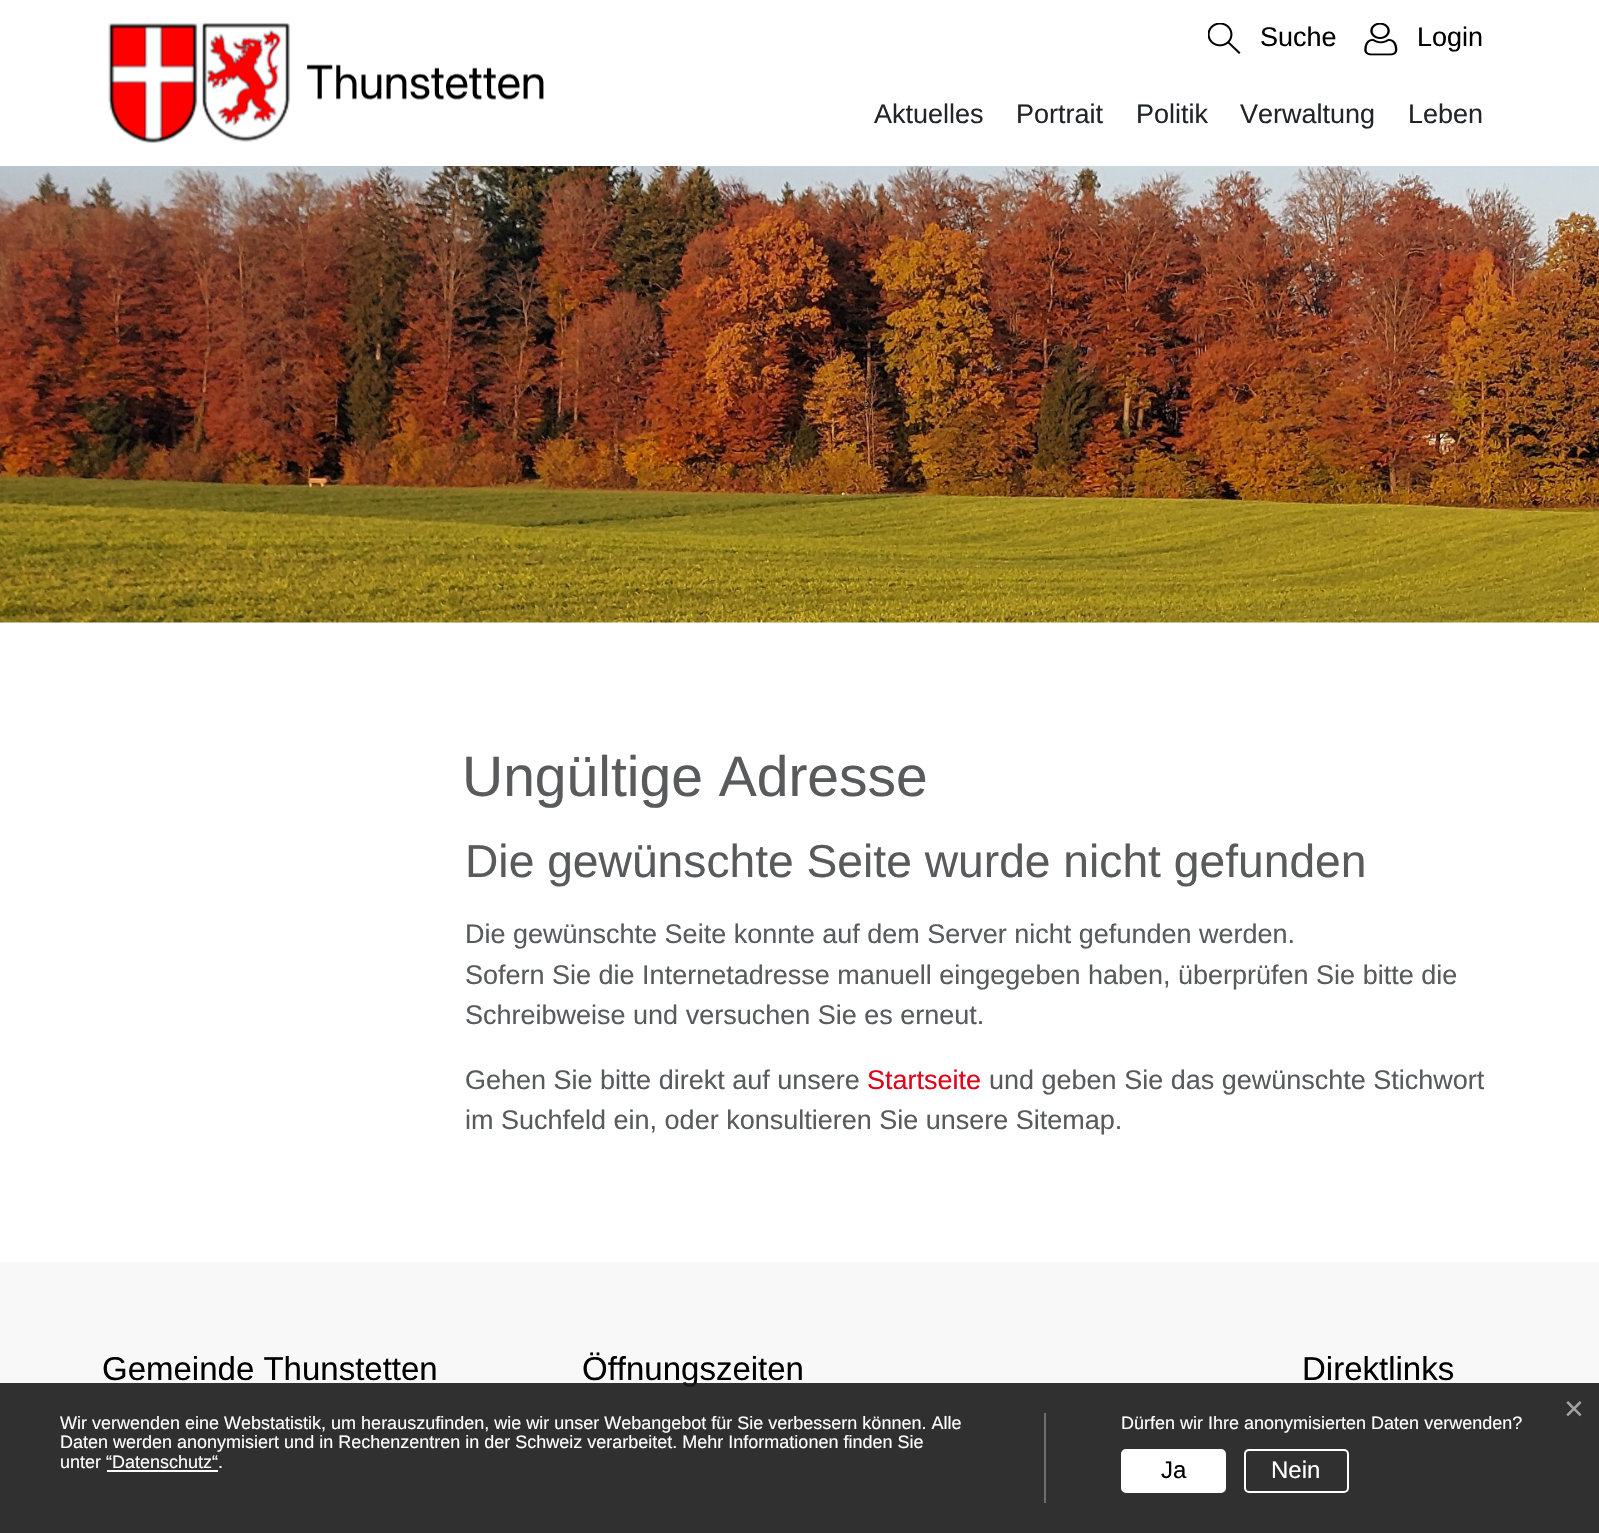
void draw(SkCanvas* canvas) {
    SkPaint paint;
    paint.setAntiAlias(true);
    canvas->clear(0xFFFFFFFF);
    canvas->drawImageRect(SkImages::DeferredFromEncodedData(SkData::MakeFromFileName("img1.png")), SkRect::MakeXYWH(108, 22, 436, 121), SkSamplingOptions());
    canvas->drawImageRect(SkImages::DeferredFromEncodedData(SkData::MakeFromFileName("img2.png")), SkRect::MakeXYWH(1208, 23, 33, 31), SkSamplingOptions());
    SkFont font1(fontMgr->matchFamilyStyle("Liberation Sans", SkFontStyle::Normal()), 27);
    font1.setSubpixel(true);
    paint.setColor(0xFF000000);
    canvas->drawString("Suche", 1260, 46, font1, paint);
    canvas->drawImageRect(SkImages::DeferredFromEncodedData(SkData::MakeFromFileName("img3.png")), SkRect::MakeXYWH(1364, 23, 34, 33), SkSamplingOptions());
    canvas->drawString("Login", 1417, 46, font1, paint);
    paint.setColor(0xFF212529);
    canvas->drawString("Aktuelles", 874, 123, font1, paint);
    canvas->drawString("Portrait", 1016, 123, font1, paint);
    canvas->drawString("Politik", 1136, 123, font1, paint);
    canvas->drawString("Verwaltung", 1240, 123, font1, paint);
    canvas->drawString("Leben", 1408, 123, font1, paint);
    canvas->drawImageRect(SkImages::DeferredFromEncodedData(SkData::MakeFromFileName("img4.png")), SkRect::MakeXYWH(0, 166, 1599, 457), SkSamplingOptions());
    SkFont font2(fontMgr->matchFamilyStyle("Liberation Sans", SkFontStyle::Normal()), 57);
    font2.setSubpixel(true);
    paint.setColor(0xFF595A5C);
    canvas->drawString("Ungültige Adresse", 462, 796, font2, paint);
    SkFont font3(fontMgr->matchFamilyStyle("Liberation Sans", SkFontStyle::Normal()), 46.2f);
    font3.setSubpixel(true);
    canvas->drawString("Die gewünschte Seite wurde nicht gefunden", 465, 877, font3, paint);
    canvas->drawString("Die gewünschte Seite konnte auf dem Server nicht gefunden werden.", 465, 943, font1, paint);
    canvas->drawString("Sofern Sie die Internetadresse manuell eingegeben haben, überprüfen Sie bitte die", 465, 984, font1, paint);
    canvas->drawString("Schreibweise und versuchen Sie es erneut.", 465, 1024, font1, paint);
    canvas->drawString("Gehen Sie bitte direkt auf unsere", 465, 1089, font1, paint);
    paint.setColor(0xFFE20119);
    canvas->drawString("Startseite", 867, 1089, font1, paint);
    paint.setColor(0xFF595A5C);
    canvas->drawString("und geben Sie das gewünschte Stichwort", 989, 1089, font1, paint);
    canvas->drawString("im Suchfeld ein, oder konsultieren Sie unsere Sitemap.", 465, 1129, font1, paint);
    paint.setColor(0xFFF8F8F8);
    canvas->drawRect(SkRect::MakeXYWH(0, 1262, 1599, 271), paint);
    SkFont font4(fontMgr->matchFamilyStyle("Liberation Sans", SkFontStyle::Normal()), 33);
    font4.setSubpixel(true);
    paint.setColor(0xFF000000);
    canvas->drawString("Gemeinde Thunstetten", 102, 1380, font4, paint);
    canvas->drawString("Öffnungszeiten", 582, 1380, font4, paint);
    canvas->drawString("Direktlinks", 1302, 1380, font4, paint);
    paint.setColor(0xE6191919);
    canvas->drawRect(SkRect::MakeXYWH(0, 1383, 1599, 150), paint);
    SkFont font5(fontMgr->matchFamilyStyle("Liberation Sans", SkFontStyle::Normal()), 34);
    font5.setSubpixel(true);
    paint.setColor(0xFFA2A2A2);
    canvas->drawString("×", 1564, 1420, font5, paint);
    paint.setColor(0xFF6D6D6D);
    canvas->drawRect(SkRect::MakeXYWH(1044, 1413, 2, 90), paint);
    SkFont font6(fontMgr->matchFamilyStyle("Liberation Sans", SkFontStyle::Normal()), 18);
    font6.setSubpixel(true);
    paint.setColor(0xFFFFFFFF);
    canvas->drawString("Wir verwenden eine Webstatistik, um herauszufinden, wie wir unser Webangebot für Sie verbessern können. Alle", 60, 1429, font6, paint);
    canvas->drawString("Daten werden anonymisiert und in Rechenzentren in der Schweiz verarbeitet. Mehr Informationen finden Sie", 60, 1448, font6, paint);
    canvas->drawString("unter “Datenschutz“.", 60, 1468, font6, paint);
    canvas->drawRect(SkRect::MakeXYWH(107, 1470, 111, 2), paint);
    canvas->drawString("Dürfen wir Ihre anonymisierten Daten verwenden?", 1121, 1429, font6, paint);
    canvas->drawRoundRect(SkRect::MakeXYWH(1122, 1450, 103, 42), 4, 4, paint);
    paint.setStyle(SkPaint::kStroke_Style);
    paint.setStrokeWidth(2);
    canvas->drawRoundRect(SkRect::MakeXYWH(1122, 1450, 103, 42), 4, 4, paint);
    SkFont font7(fontMgr->matchFamilyStyle("Liberation Sans", SkFontStyle::Normal()), 24);
    font7.setSubpixel(true);
    paint.setStyle(SkPaint::kFill_Style);
    paint.setColor(0xFF000000);
    canvas->drawString("Ja", 1161, 1478, font7, paint);
    paint.setStyle(SkPaint::kStroke_Style);
    paint.setColor(0xFFFFFFFF);
    canvas->drawRoundRect(SkRect::MakeXYWH(1245, 1450, 103, 42), 4, 4, paint);
    paint.setStyle(SkPaint::kFill_Style);
    canvas->drawString("Nein", 1271, 1478, font7, paint);
}
